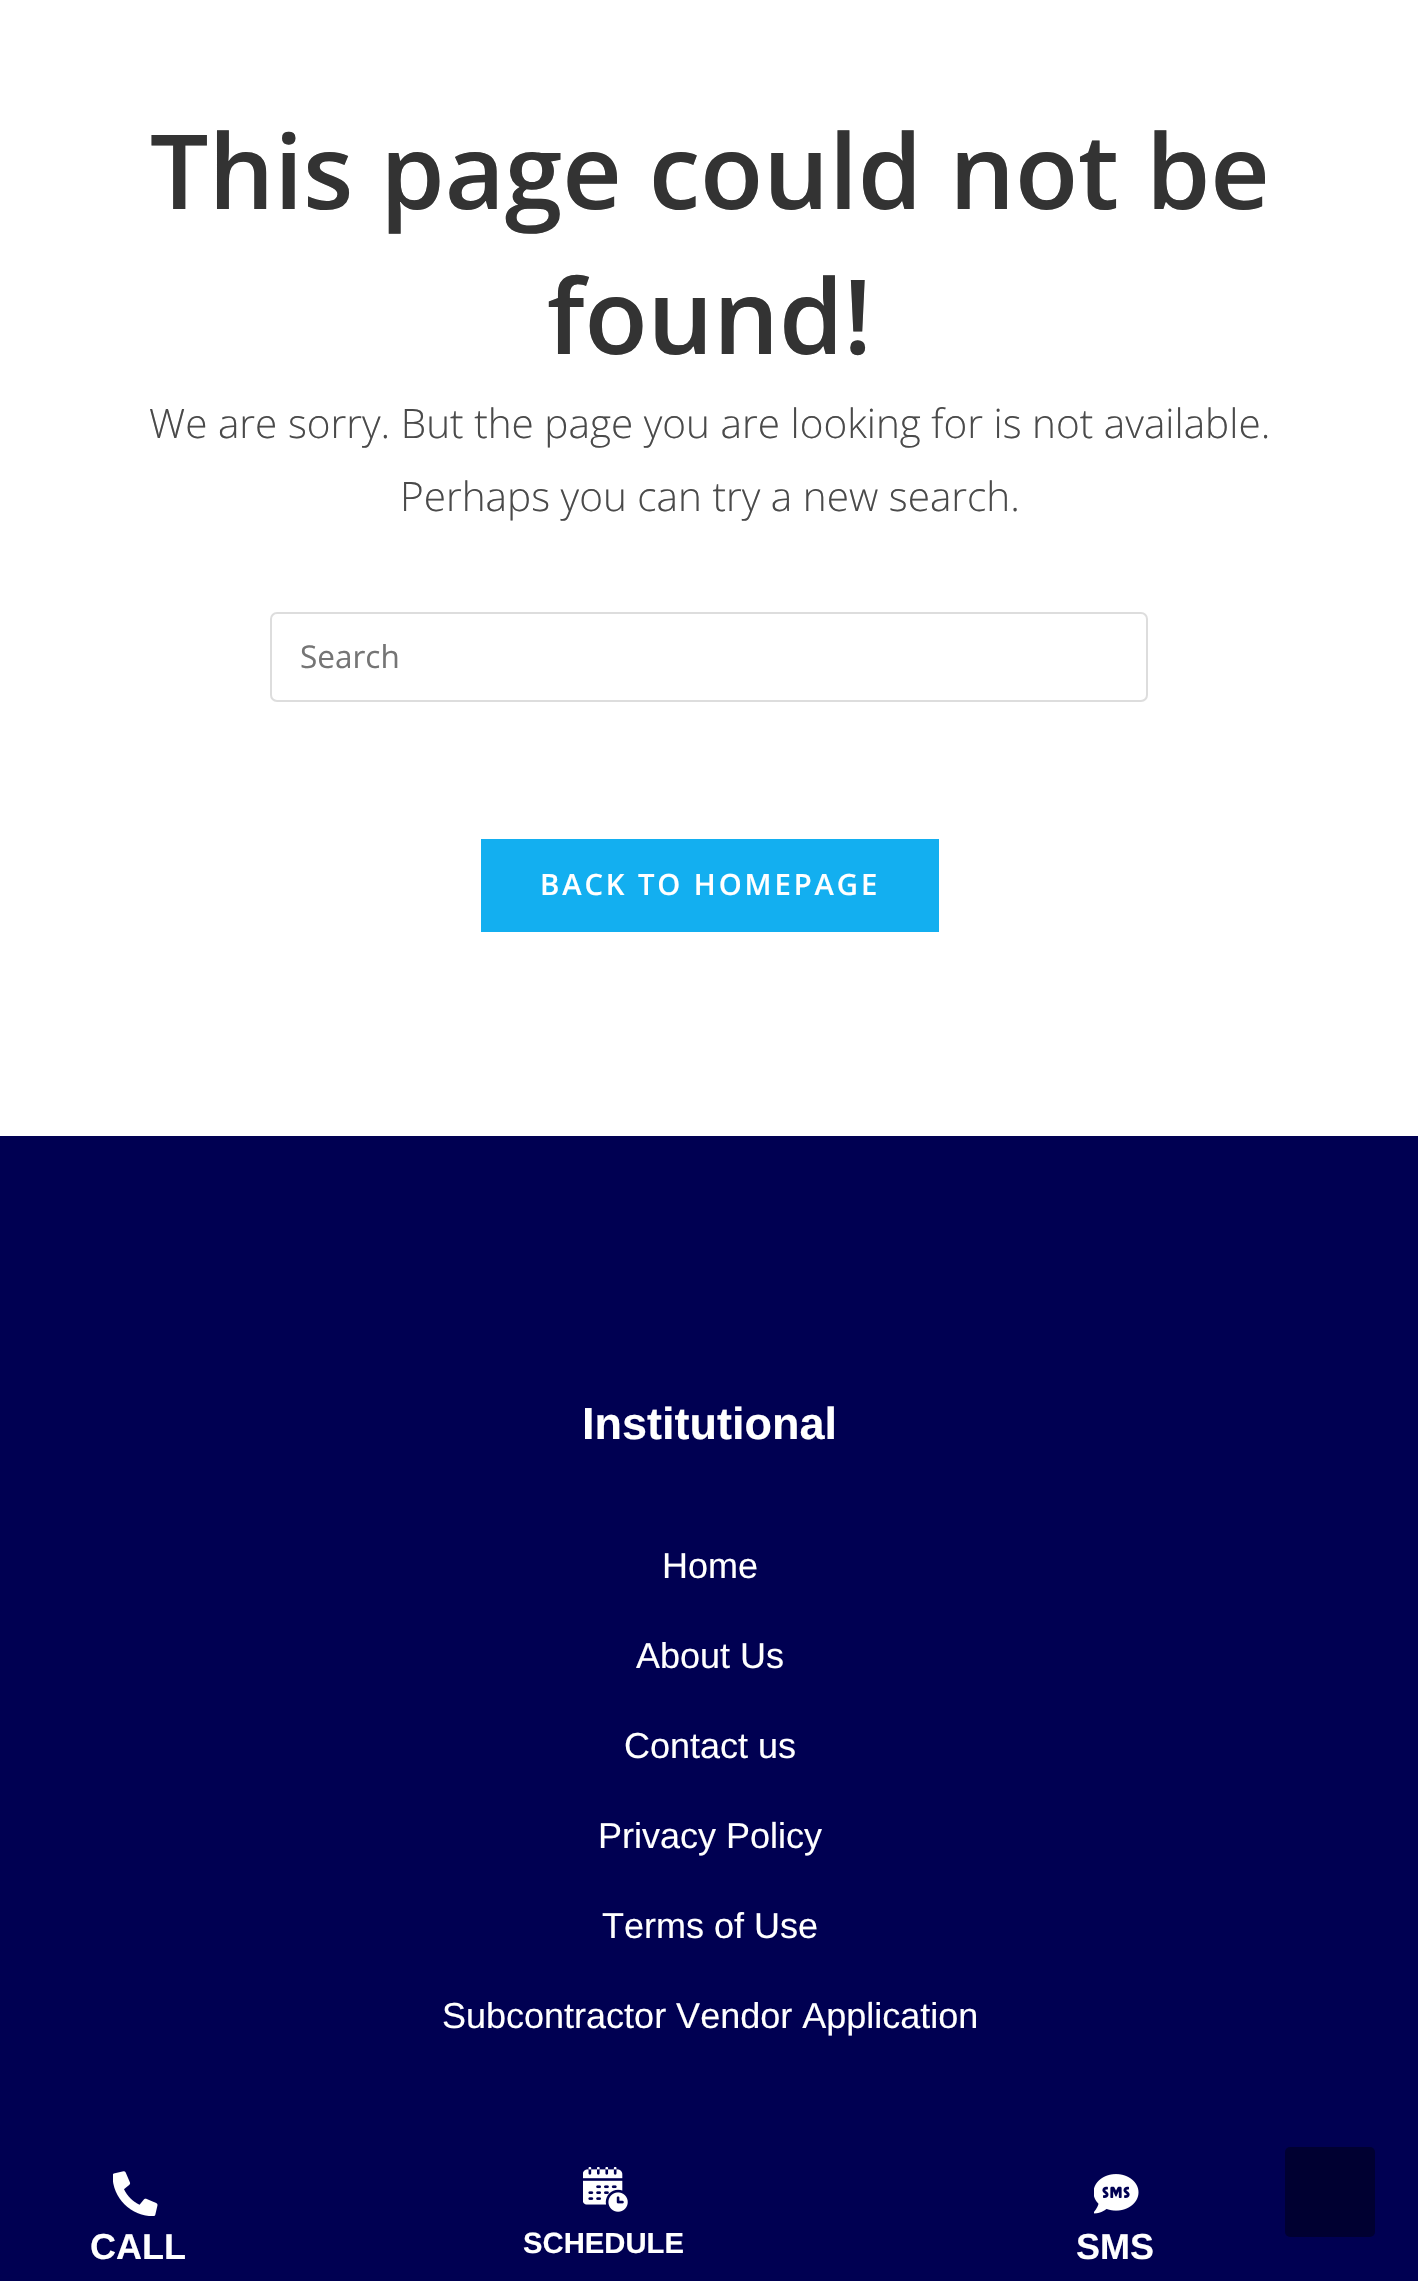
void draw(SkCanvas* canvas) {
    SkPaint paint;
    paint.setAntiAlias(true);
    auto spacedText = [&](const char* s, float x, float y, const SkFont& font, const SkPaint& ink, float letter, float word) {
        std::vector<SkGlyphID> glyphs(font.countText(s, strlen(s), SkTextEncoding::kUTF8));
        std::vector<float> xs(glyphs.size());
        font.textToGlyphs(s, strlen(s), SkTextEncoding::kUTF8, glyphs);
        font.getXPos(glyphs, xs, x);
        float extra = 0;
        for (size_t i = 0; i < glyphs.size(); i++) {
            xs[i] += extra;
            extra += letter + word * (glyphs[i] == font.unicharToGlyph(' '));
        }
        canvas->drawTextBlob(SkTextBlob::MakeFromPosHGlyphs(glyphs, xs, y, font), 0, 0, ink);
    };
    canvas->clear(0xFFFFFFFF);
    SkFont font1(fontMgr->matchFamilyStyle("Open Sans", SkFontStyle(600, SkFontStyle::kNormal_Width, SkFontStyle::kUpright_Slant)), 103.5f);
    font1.setSubpixel(true);
    paint.setColor(0xFF333333);
    canvas->drawString("This page could not be", 150, 209, font1, paint);
    canvas->drawString("found!", 547, 354, font1, paint);
    SkFont font2(fontMgr->matchFamilyStyle("Open Sans", SkFontStyle(300, SkFontStyle::kNormal_Width, SkFontStyle::kUpright_Slant)), 40.5f);
    font2.setSubpixel(true);
    paint.setColor(0xFF4A4A4A);
    canvas->drawString("We are sorry. But the page you are looking for is not available.", 149, 438, font2, paint);
    canvas->drawString("Perhaps you can try a new search.", 400, 511, font2, paint);
    paint.setStyle(SkPaint::kStroke_Style);
    paint.setStrokeWidth(2);
    paint.setColor(0xFFDDDDDD);
    canvas->drawRoundRect(SkRect::MakeXYWH(271, 613, 876, 88), 6, 6, paint);
    SkFont font3(fontMgr->matchFamilyStyle("Open Sans", SkFontStyle::Normal()), 31.5f);
    font3.setSubpixel(true);
    paint.setStyle(SkPaint::kFill_Style);
    paint.setColor(0xFF757575);
    canvas->drawString("Search", 300, 668, font3, paint);
    paint.setColor(0xFF13AFF0);
    canvas->drawRect(SkRect::MakeXYWH(481, 839, 458, 93), paint);
    SkFont font4(fontMgr->matchFamilyStyle("Open Sans", SkFontStyle(600, SkFontStyle::kNormal_Width, SkFontStyle::kUpright_Slant)), 29.25f);
    font4.setSubpixel(true);
    paint.setColor(0xFFFFFFFF);
    spacedText("BACK TO HOMEPAGE", 540, 895, font4, paint, 2.9f, 0);
    paint.setColor(0xFF000052);
    canvas->drawRect(SkRect::MakeXYWH(0, 1136, 1418, 1145), paint);
    SkFont font5(fontMgr->matchFamilyStyle("Liberation Sans", SkFontStyle::Bold()), 45);
    font5.setSubpixel(true);
    paint.setColor(0xFFFFFFFF);
    canvas->drawString("Institutional", 582, 1439, font5, paint);
    SkFont font6(fontMgr->matchFamilyStyle("Liberation Sans", SkFontStyle::Normal()), 36);
    font6.setSubpixel(true);
    canvas->drawString("Home", 662, 1578, font6, paint);
    canvas->drawString("About Us", 636, 1668, font6, paint);
    canvas->drawString("Contact us", 624, 1758, font6, paint);
    canvas->drawString("Privacy Policy", 598, 1848, font6, paint);
    canvas->drawString("Terms of Use", 602, 1938, font6, paint);
    canvas->drawString("Subcontractor Vendor Application", 442, 2028, font6, paint);
    canvas->drawImageRect(SkImages::DeferredFromEncodedData(SkData::MakeFromFileName("img1.png")), SkRect::MakeXYWH(113, 2171, 45, 45), SkSamplingOptions());
    SkFont font7(fontMgr->matchFamilyStyle("Liberation Sans", SkFontStyle::Bold()), 36);
    font7.setSubpixel(true);
    canvas->drawString("CALL", 90, 2259, font7, paint);
    canvas->drawImageRect(SkImages::DeferredFromEncodedData(SkData::MakeFromFileName("img2.png")), SkRect::MakeXYWH(583, 2167, 45, 45), SkSamplingOptions());
    SkFont font8(fontMgr->matchFamilyStyle("Liberation Sans", SkFontStyle::Bold()), 29.25f);
    font8.setSubpixel(true);
    canvas->drawString("SCHEDULE", 523, 2253, font8, paint);
    canvas->drawImageRect(SkImages::DeferredFromEncodedData(SkData::MakeFromFileName("img3.png")), SkRect::MakeXYWH(1094, 2174, 45, 40), SkSamplingOptions());
    canvas->drawString("SMS", 1076, 2259, font7, paint);
    paint.setColor(0xFF000031);
    canvas->drawRoundRect(SkRect::MakeXYWH(1285, 2147, 90, 90), 5, 5, paint);
}
